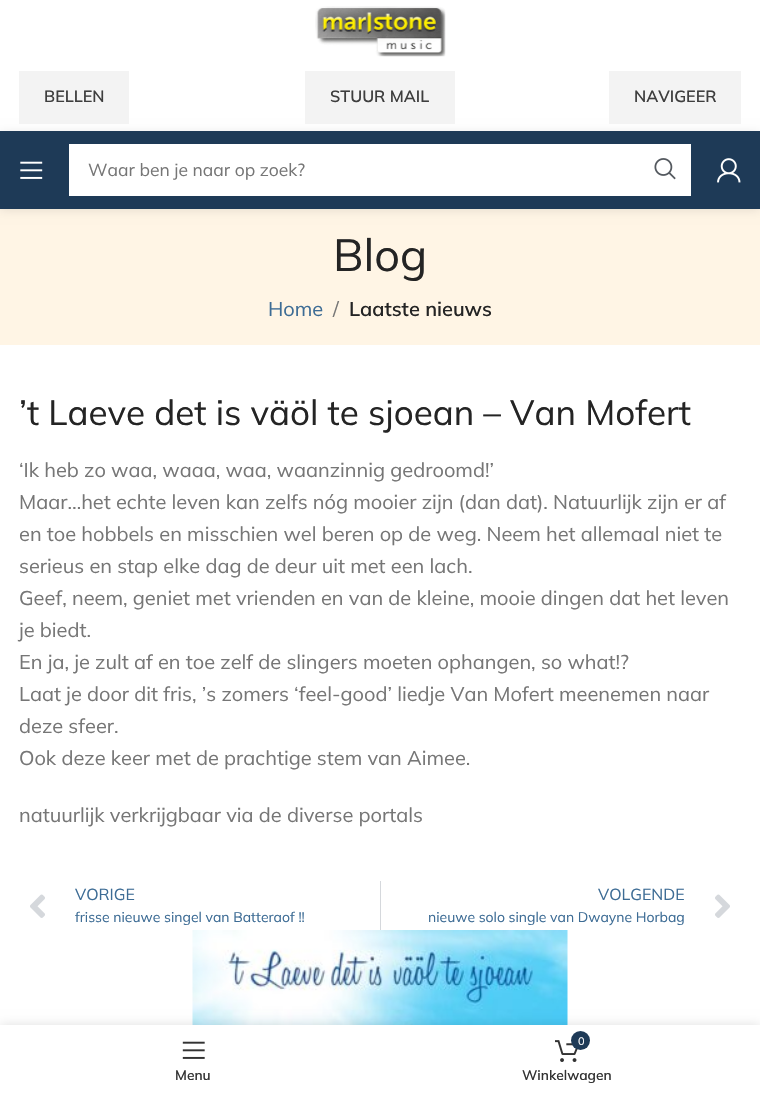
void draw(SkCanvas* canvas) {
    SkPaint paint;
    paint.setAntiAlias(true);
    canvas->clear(0xFFFFFFFF);
    canvas->drawImageRect(SkImages::DeferredFromEncodedData(SkData::MakeFromFileName("img1.png")), SkRect::MakeXYWH(315, 6, 131, 51), SkSamplingOptions());
    paint.setColor(0xFFFFF5E5);
    canvas->drawRect(SkRect::MakeXYWH(0, 209, 760, 136), paint);
    paint.setColor(0x1A000000);
    paint.setMaskFilter(SkMaskFilter::MakeBlur(kNormal_SkBlurStyle, 5));
    canvas->drawRect(SkRect::MakeXYWH(0, 133, 760, 77), paint);
    paint.setMaskFilter(nullptr);
    paint.setColor(0xFFF3F3F3);
    canvas->drawRect(SkRect::MakeXYWH(19, 71, 110, 53), paint);
    SkFont font1(fontMgr->matchFamilyStyle("Mulish", SkFontStyle(600, SkFontStyle::kNormal_Width, SkFontStyle::kUpright_Slant)), 16.25f);
    font1.setSubpixel(true);
    paint.setColor(0xFF3E3E3E);
    canvas->drawString("BELLEN", 44, 102, font1, paint);
    paint.setColor(0xFFF3F3F3);
    canvas->drawRect(SkRect::MakeXYWH(305, 71, 150, 53), paint);
    paint.setColor(0xFF3E3E3E);
    canvas->drawString("STUUR MAIL", 330, 102, font1, paint);
    paint.setColor(0xFFF3F3F3);
    canvas->drawRect(SkRect::MakeXYWH(609, 71, 132, 53), paint);
    paint.setColor(0xFF3E3E3E);
    canvas->drawString("NAVIGEER", 634, 102, font1, paint);
    paint.setColor(0xFF1E3A57);
    canvas->drawRect(SkRect::MakeXYWH(0, 131, 760, 78), paint);
    canvas->drawImageRect(SkImages::DeferredFromEncodedData(SkData::MakeFromFileName("img2.png")), SkRect::MakeXYWH(20, 161, 23, 18), SkSamplingOptions());
    paint.setColor(0xFFFFFFFF);
    canvas->drawRect(SkRect::MakeXYWH(69, 144, 622, 52), paint);
    SkFont font2(fontMgr->matchFamilyStyle("Mulish", SkFontStyle::Normal()), 17.5f);
    font2.setSubpixel(true);
    paint.setColor(0xFF767676);
    canvas->drawString("Waar ben je naar op zoek?", 88, 176, font2, paint);
    canvas->drawImageRect(SkImages::DeferredFromEncodedData(SkData::MakeFromFileName("img3.png")), SkRect::MakeXYWH(654, 158, 22, 22), SkSamplingOptions());
    canvas->drawImageRect(SkImages::DeferredFromEncodedData(SkData::MakeFromFileName("img4.png")), SkRect::MakeXYWH(717, 158, 24, 25), SkSamplingOptions());
    SkFont font3(fontMgr->matchFamilyStyle("Mulish", SkFontStyle::Normal()), 45);
    font3.setSubpixel(true);
    paint.setColor(0xFF242424);
    canvas->drawString("Blog", 333, 271, font3, paint);
    SkFont font4(fontMgr->matchFamilyStyle("Mulish", SkFontStyle::Normal()), 20);
    font4.setSubpixel(true);
    paint.setColor(0xFF3D6C95);
    canvas->drawString("Home", 268, 316, font4, paint);
    paint.setColor(0xFF767676);
    canvas->drawString("/", 333, 316, font4, paint);
    SkFont font5(fontMgr->matchFamilyStyle("Mulish", SkFontStyle(600, SkFontStyle::kNormal_Width, SkFontStyle::kUpright_Slant)), 20);
    font5.setSubpixel(true);
    paint.setColor(0xFF242424);
    canvas->drawString("Laatste nieuws", 349, 316, font5, paint);
    SkFont font6(fontMgr->matchFamilyStyle("Mulish", SkFontStyle::Normal()), 35);
    font6.setSubpixel(true);
    canvas->drawString("’t Laeve det is väöl te sjoean – Van Mofert", 19, 425, font6, paint);
    paint.setColor(0xFF767676);
    canvas->drawString("‘Ik heb zo waa, waaa, waa, waanzinnig gedroomd!’", 19, 477, font4, paint);
    canvas->drawString("Maar…het echte leven kan zelfs nóg mooier zijn (dan dat). Natuurlijk zijn er af", 19, 509, font4, paint);
    canvas->drawString("en toe hobbels en misschien wel beren op de weg. Neem het allemaal niet te", 19, 541, font4, paint);
    canvas->drawString("serieus en stap elke dag de deur uit met een lach.", 19, 573, font4, paint);
    canvas->drawString("Geef, neem, geniet met vrienden en van de kleine, mooie dingen dat het leven", 19, 605, font4, paint);
    canvas->drawString("je biedt.", 19, 637, font4, paint);
    canvas->drawString("En ja, je zult af en toe zelf de slingers moeten ophangen, so what!?", 19, 669, font4, paint);
    canvas->drawString("Laat je door dit fris, ’s zomers ‘feel-good’ liedje Van Mofert meenemen naar", 19, 701, font4, paint);
    canvas->drawString("deze sfeer.", 19, 733, font4, paint);
    canvas->drawString("Ook deze keer met de prachtige stem van Aimee.", 19, 765, font4, paint);
    canvas->drawString("natuurlijk verkrijgbaar via de diverse portals", 19, 822, font4, paint);
    canvas->drawImageRect(SkImages::DeferredFromEncodedData(SkData::MakeFromFileName("img5.png")), SkRect::MakeXYWH(30, 894, 15, 24), SkSamplingOptions());
    SkFont font7(fontMgr->matchFamilyStyle("Mulish", SkFontStyle::Normal()), 16);
    font7.setSubpixel(true);
    paint.setColor(0xFF3D6C95);
    canvas->drawString("VORIGE", 75, 900, font7, paint);
    SkFont font8(fontMgr->matchFamilyStyle("Mulish", SkFontStyle::Normal()), 14);
    font8.setSubpixel(true);
    canvas->drawString("frisse nieuwe singel van Batteraof !!", 75, 922, font8, paint);
    paint.setColor(0xFFD5D8DC);
    canvas->drawRect(SkRect::MakeXYWH(380, 881, 1, 49), paint);
    paint.setColor(0xFF3D6C95);
    canvas->drawString("VOLGENDE", 598, 900, font7, paint);
    canvas->drawString("nieuwe solo single van Dwayne Horbag", 428, 922, font8, paint);
    canvas->drawImageRect(SkImages::DeferredFromEncodedData(SkData::MakeFromFileName("img6.png")), SkRect::MakeXYWH(715, 894, 15, 24), SkSamplingOptions());
    canvas->drawImageRect(SkImages::DeferredFromEncodedData(SkData::MakeFromFileName("img7.png")), SkRect::MakeXYWH(192, 930, 376, 95), SkSamplingOptions());
    paint.setColor(0x1F000000);
    paint.setMaskFilter(SkMaskFilter::MakeBlur(kNormal_SkBlurStyle, 5.5f));
    canvas->drawRect(SkRect::MakeXYWH(0, 1025, 760, 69), paint);
    paint.setMaskFilter(nullptr);
    paint.setColor(0xFFFFFFFF);
    canvas->drawRect(SkRect::MakeXYWH(0, 1025, 760, 68), paint);
    canvas->drawImageRect(SkImages::DeferredFromEncodedData(SkData::MakeFromFileName("img8.png")), SkRect::MakeXYWH(182, 1041, 23, 18), SkSamplingOptions());
    SkFont font9(fontMgr->matchFamilyStyle("Mulish", SkFontStyle(600, SkFontStyle::kNormal_Width, SkFontStyle::kUpright_Slant)), 13.75f);
    font9.setSubpixel(true);
    paint.setColor(0xFF333333);
    canvas->drawString("Menu", 175, 1080, font9, paint);
    canvas->drawImageRect(SkImages::DeferredFromEncodedData(SkData::MakeFromFileName("img9.png")), SkRect::MakeXYWH(555, 1040, 23, 22), SkSamplingOptions());
    paint.setColor(0xFF1E3A57);
    canvas->drawCircle(580.5f, 1040.5f, 9.5f, paint);
    SkFont font10(fontMgr->matchFamilyStyle("Mulish", SkFontStyle::Normal()), 11);
    font10.setSubpixel(true);
    paint.setColor(0xFFFFFFFF);
    canvas->drawString("0", 578, 1045, font10, paint);
    paint.setColor(0xFF333333);
    canvas->drawString("Winkelwagen", 522, 1080, font9, paint);
}
